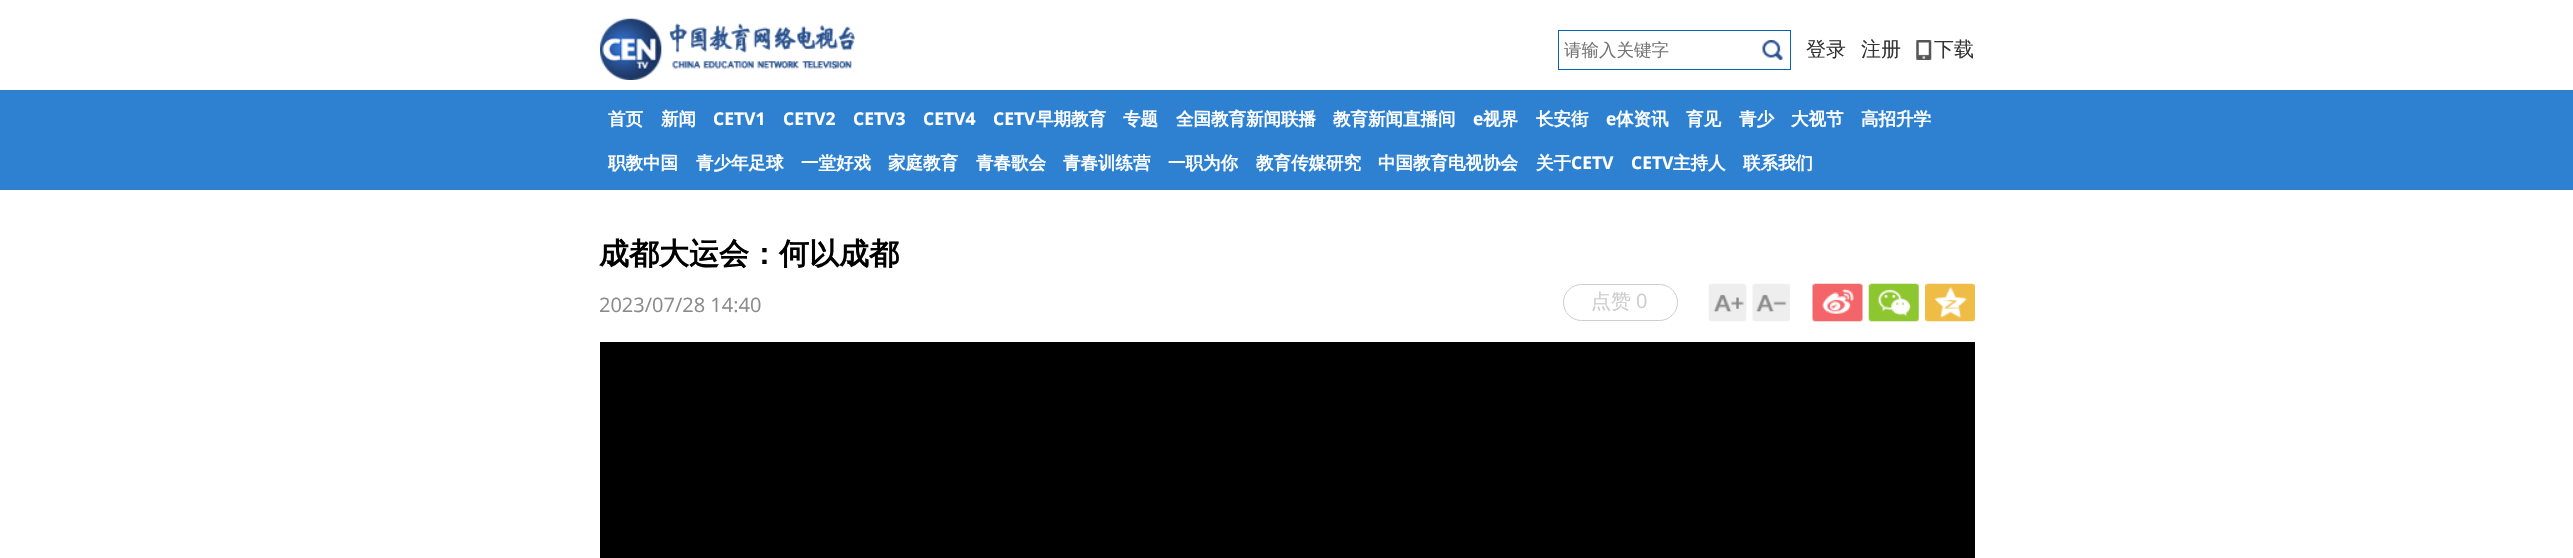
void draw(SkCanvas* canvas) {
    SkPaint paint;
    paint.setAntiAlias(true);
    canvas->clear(0xFFFFFFFF);
    canvas->drawImageRect(SkImages::DeferredFromEncodedData(SkData::MakeFromFileName("img1.png")), SkRect::MakeXYWH(600, 18, 255, 62), SkSamplingOptions());
    paint.setStyle(SkPaint::kStroke_Style);
    paint.setStrokeWidth(1);
    paint.setColor(0xFF0864BB);
    canvas->drawRect(SkRect::MakeXYWH(1558.5f, 30.5f, 232, 39), paint);
    SkFont font1(fontMgr->matchFamilyStyle("WenQuanYi Zen Hei", SkFontStyle(500, SkFontStyle::kNormal_Width, SkFontStyle::kUpright_Slant)), 17.5f);
    font1.setSubpixel(true);
    paint.setStyle(SkPaint::kFill_Style);
    paint.setColor(0xFF757575);
    canvas->drawString("请输入关键字", 1564, 56, font1, paint);
    canvas->drawImageRect(SkImages::DeferredFromEncodedData(SkData::MakeFromFileName("img2.png")), SkRect::MakeXYWH(1762, 40, 21, 20), SkSamplingOptions());
    SkFont font2(fontMgr->matchFamilyStyle("WenQuanYi Zen Hei", SkFontStyle(500, SkFontStyle::kNormal_Width, SkFontStyle::kUpright_Slant)), 20);
    font2.setSubpixel(true);
    paint.setColor(0xFF333333);
    canvas->drawString("登录", 1806, 56, font2, paint);
    canvas->drawString("注册", 1861, 56, font2, paint);
    canvas->drawImageRect(SkImages::DeferredFromEncodedData(SkData::MakeFromFileName("img3.png")), SkRect::MakeXYWH(1916, 40, 16, 20), SkSamplingOptions());
    canvas->drawString("下载", 1934, 56, font2, paint);
    paint.setColor(0xFF2D81D0);
    canvas->drawRect(SkRect::MakeXYWH(0, 90, 2573, 100), paint);
    SkFont font3(fontMgr->matchFamilyStyle("WenQuanYi Zen Hei", SkFontStyle::Bold()), 17.5f);
    font3.setSubpixel(true);
    paint.setColor(0xFFFFFFFF);
    canvas->drawString("首页", 608, 125, font3, paint);
    canvas->drawString("新闻", 661, 125, font3, paint);
    SkFont font4(fontMgr->matchFamilyStyle("Open Sans", SkFontStyle::Bold()), 17.5f);
    font4.setSubpixel(true);
    canvas->drawString("CETV1", 713, 125, font4, paint);
    canvas->drawString("CETV2", 783, 125, font4, paint);
    canvas->drawString("CETV3", 853, 125, font4, paint);
    canvas->drawString("CETV4", 923, 125, font4, paint);
    canvas->drawString("CETV", 993, 125, font4, paint);
    canvas->drawString("早期教育", 1036, 125, font3, paint);
    canvas->drawString("专题", 1123, 125, font3, paint);
    canvas->drawString("全国教育新闻联播", 1176, 125, font3, paint);
    canvas->drawString("教育新闻直播间", 1333, 125, font3, paint);
    canvas->drawString("e", 1473, 125, font4, paint);
    canvas->drawString("视界", 1483, 125, font3, paint);
    canvas->drawString("长安街", 1536, 125, font3, paint);
    canvas->drawString("e", 1606, 125, font4, paint);
    canvas->drawString("体资讯", 1616, 125, font3, paint);
    canvas->drawString("育见", 1686, 125, font3, paint);
    canvas->drawString("青少", 1739, 125, font3, paint);
    canvas->drawString("大视节", 1791, 125, font3, paint);
    canvas->drawString("高招升学", 1861, 125, font3, paint);
    canvas->drawString("职教中国", 608, 169, font3, paint);
    canvas->drawString("青少年足球", 696, 169, font3, paint);
    canvas->drawString("一堂好戏", 801, 169, font3, paint);
    canvas->drawString("家庭教育", 888, 169, font3, paint);
    canvas->drawString("青春歌会", 976, 169, font3, paint);
    canvas->drawString("青春训练营", 1063, 169, font3, paint);
    canvas->drawString("一职为你", 1168, 169, font3, paint);
    canvas->drawString("教育传媒研究", 1256, 169, font3, paint);
    canvas->drawString("中国教育电视协会", 1378, 169, font3, paint);
    canvas->drawString("关于", 1536, 169, font3, paint);
    canvas->drawString("CETV", 1571, 169, font4, paint);
    canvas->drawString("CETV", 1631, 169, font4, paint);
    canvas->drawString("主持人", 1673, 169, font3, paint);
    canvas->drawString("联系我们", 1743, 169, font3, paint);
    SkFont font5(fontMgr->matchFamilyStyle("WenQuanYi Zen Hei", SkFontStyle::Bold()), 30);
    font5.setSubpixel(true);
    paint.setColor(0xFF000000);
    canvas->drawString("成都大运会：何以成都", 599, 264, font5, paint);
    SkFont font6(fontMgr->matchFamilyStyle("Open Sans", SkFontStyle::Normal()), 20);
    font6.setSubpixel(true);
    paint.setColor(0xFF8A8A8A);
    canvas->drawString("2023/07/28 14:40", 599, 312, font6, paint);
    paint.setStyle(SkPaint::kStroke_Style);
    paint.setColor(0xFFCDCDCD);
    canvas->drawRoundRect(SkRect::MakeXYWH(1563.5f, 284.5f, 114, 36), 18, 18, paint);
    paint.setStyle(SkPaint::kFill_Style);
    canvas->drawString("点赞", 1591, 308, font2, paint);
    canvas->drawString("0", 1636, 308, font6, paint);
    canvas->drawImageRect(SkImages::DeferredFromEncodedData(SkData::MakeFromFileName("img4.png")), SkRect::MakeXYWH(1708, 283, 39, 39), SkSamplingOptions());
    canvas->drawImageRect(SkImages::DeferredFromEncodedData(SkData::MakeFromFileName("img5.png")), SkRect::MakeXYWH(1752, 283, 38, 39), SkSamplingOptions());
    canvas->drawImageRect(SkImages::DeferredFromEncodedData(SkData::MakeFromFileName("img6.png")), SkRect::MakeXYWH(1812, 283, 51, 39), SkSamplingOptions());
    canvas->drawImageRect(SkImages::DeferredFromEncodedData(SkData::MakeFromFileName("img7.png")), SkRect::MakeXYWH(1868, 283, 51, 39), SkSamplingOptions());
    canvas->drawImageRect(SkImages::DeferredFromEncodedData(SkData::MakeFromFileName("img8.png")), SkRect::MakeXYWH(1925, 283, 50, 39), SkSamplingOptions());
    paint.setColor(0xFF000000);
    canvas->drawRect(SkRect::MakeXYWH(600, 342, 1375, 216), paint);
}
